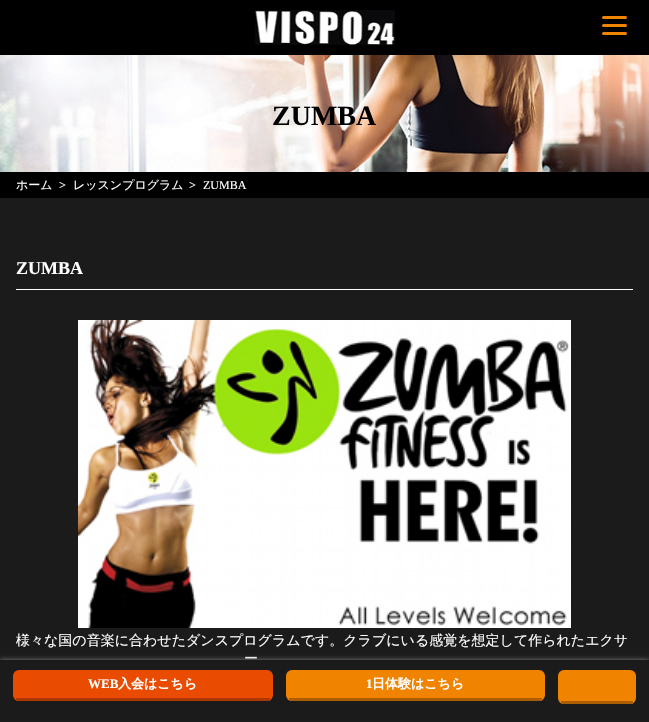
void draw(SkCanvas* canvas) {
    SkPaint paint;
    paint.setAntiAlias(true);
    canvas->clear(0xFF000000);
    canvas->drawImageRect(SkImages::DeferredFromEncodedData(SkData::MakeFromFileName("img1.png")), SkRect::MakeXYWH(255, 10, 140, 35), SkSamplingOptions());
    paint.setColor(0xFFF08300);
    canvas->drawRoundRect(SkRect::MakeXYWH(602, 24, 25, 3), 1.5f, 1.5f, paint);
    canvas->drawRoundRect(SkRect::MakeXYWH(602, 16, 25, 3), 1.5f, 1.5f, paint);
    canvas->drawRoundRect(SkRect::MakeXYWH(602, 32, 25, 3), 1.5f, 1.5f, paint);
    canvas->drawImageRect(SkImages::DeferredFromEncodedData(SkData::MakeFromFileName("img2.png")), SkRect::MakeXYWH(0, 55, 649, 117), SkSamplingOptions());
    SkFont font1(fontMgr->matchFamilyStyle("Liberation Serif", SkFontStyle::Bold()), 28);
    font1.setSubpixel(true);
    paint.setColor(0xFF000000);
    canvas->drawString("ZUMBA", 272, 125, font1, paint);
    SkFont font2(fontMgr->matchFamilyStyle("WenQuanYi Zen Hei", SkFontStyle(500, SkFontStyle::kNormal_Width, SkFontStyle::kUpright_Slant)), 12);
    font2.setSubpixel(true);
    paint.setColor(0xFFFFFFFF);
    canvas->drawString("ホーム", 16, 189, font2, paint);
    SkFont font3(fontMgr->matchFamilyStyle("Liberation Serif", SkFontStyle::Normal()), 12);
    font3.setSubpixel(true);
    canvas->drawString(">", 59, 189, font3, paint);
    canvas->drawString("レッスンプログラム", 73, 189, font2, paint);
    canvas->drawString(">", 189, 189, font3, paint);
    canvas->drawString("ZUMBA", 203, 189, font3, paint);
    paint.setColor(0xFF1B1B1B);
    canvas->drawRect(SkRect::MakeXYWH(0, 198, 649, 462), paint);
    paint.setColor(0xFFFFFFFF);
    canvas->drawRect(SkRect::MakeXYWH(16, 289, 617, 1), paint);
    SkFont font4(fontMgr->matchFamilyStyle("Liberation Serif", SkFontStyle::Bold()), 18);
    font4.setSubpixel(true);
    canvas->drawString("ZUMBA", 16, 274, font4, paint);
    canvas->drawImageRect(SkImages::DeferredFromEncodedData(SkData::MakeFromFileName("img3.png")), SkRect::MakeXYWH(78, 320, 493, 308), SkSamplingOptions());
    SkFont font5(fontMgr->matchFamilyStyle("WenQuanYi Zen Hei", SkFontStyle(500, SkFontStyle::kNormal_Width, SkFontStyle::kUpright_Slant)), 14);
    font5.setSubpixel(true);
    canvas->drawString("様々な国の音楽に合わせたダンスプログラムです。クラブにいる感覚を想定して作られたエクサ", 16, 645, font5, paint);
    canvas->drawString("ー", 244, 663, font5, paint);
    paint.setColor(0xFF808080);
    paint.setMaskFilter(SkMaskFilter::MakeBlur(kNormal_SkBlurStyle, 2.5f));
    canvas->drawRect(SkRect::MakeXYWH(0, 660, 649, 62), paint);
    paint.setMaskFilter(nullptr);
    paint.setColor(0xFF1B1B1B);
    canvas->drawRect(SkRect::MakeXYWH(0, 660, 649, 62), paint);
    paint.setColor(0xFFE94C01);
    canvas->drawRoundRect(SkRect::MakeXYWH(13, 670, 260, 31), 6, 6, paint);
    paint.setColor(0xFFAC3800);
    canvas->drawRect(SkRect::MakeXYWH(16, 698, 254, 3), paint);
    SkFont font6(fontMgr->matchFamilyStyle("Liberation Serif", SkFontStyle::Bold()), 13);
    font6.setSubpixel(true);
    paint.setColor(0xFFFFFFFF);
    canvas->drawString("WEB", 88, 688, font6, paint);
    SkFont font7(fontMgr->matchFamilyStyle("WenQuanYi Zen Hei", SkFontStyle::Bold()), 13);
    font7.setSubpixel(true);
    canvas->drawString("入会はこちら", 118, 688, font7, paint);
    paint.setColor(0xFFF08300);
    canvas->drawRoundRect(SkRect::MakeXYWH(286, 670, 259, 31), 6, 6, paint);
    paint.setColor(0xFFAB5D00);
    canvas->drawRect(SkRect::MakeXYWH(289, 698, 253, 3), paint);
    paint.setColor(0xFFFFFFFF);
    canvas->drawString("1", 366, 688, font6, paint);
    canvas->drawString("日体験はこちら", 372, 688, font7, paint);
    paint.setColor(0xFFF08300);
    canvas->drawRoundRect(SkRect::MakeXYWH(558, 670, 78, 34), 6, 6, paint);
    paint.setColor(0xFFAB5D00);
    canvas->drawRect(SkRect::MakeXYWH(561, 701, 72, 3), paint);
}
